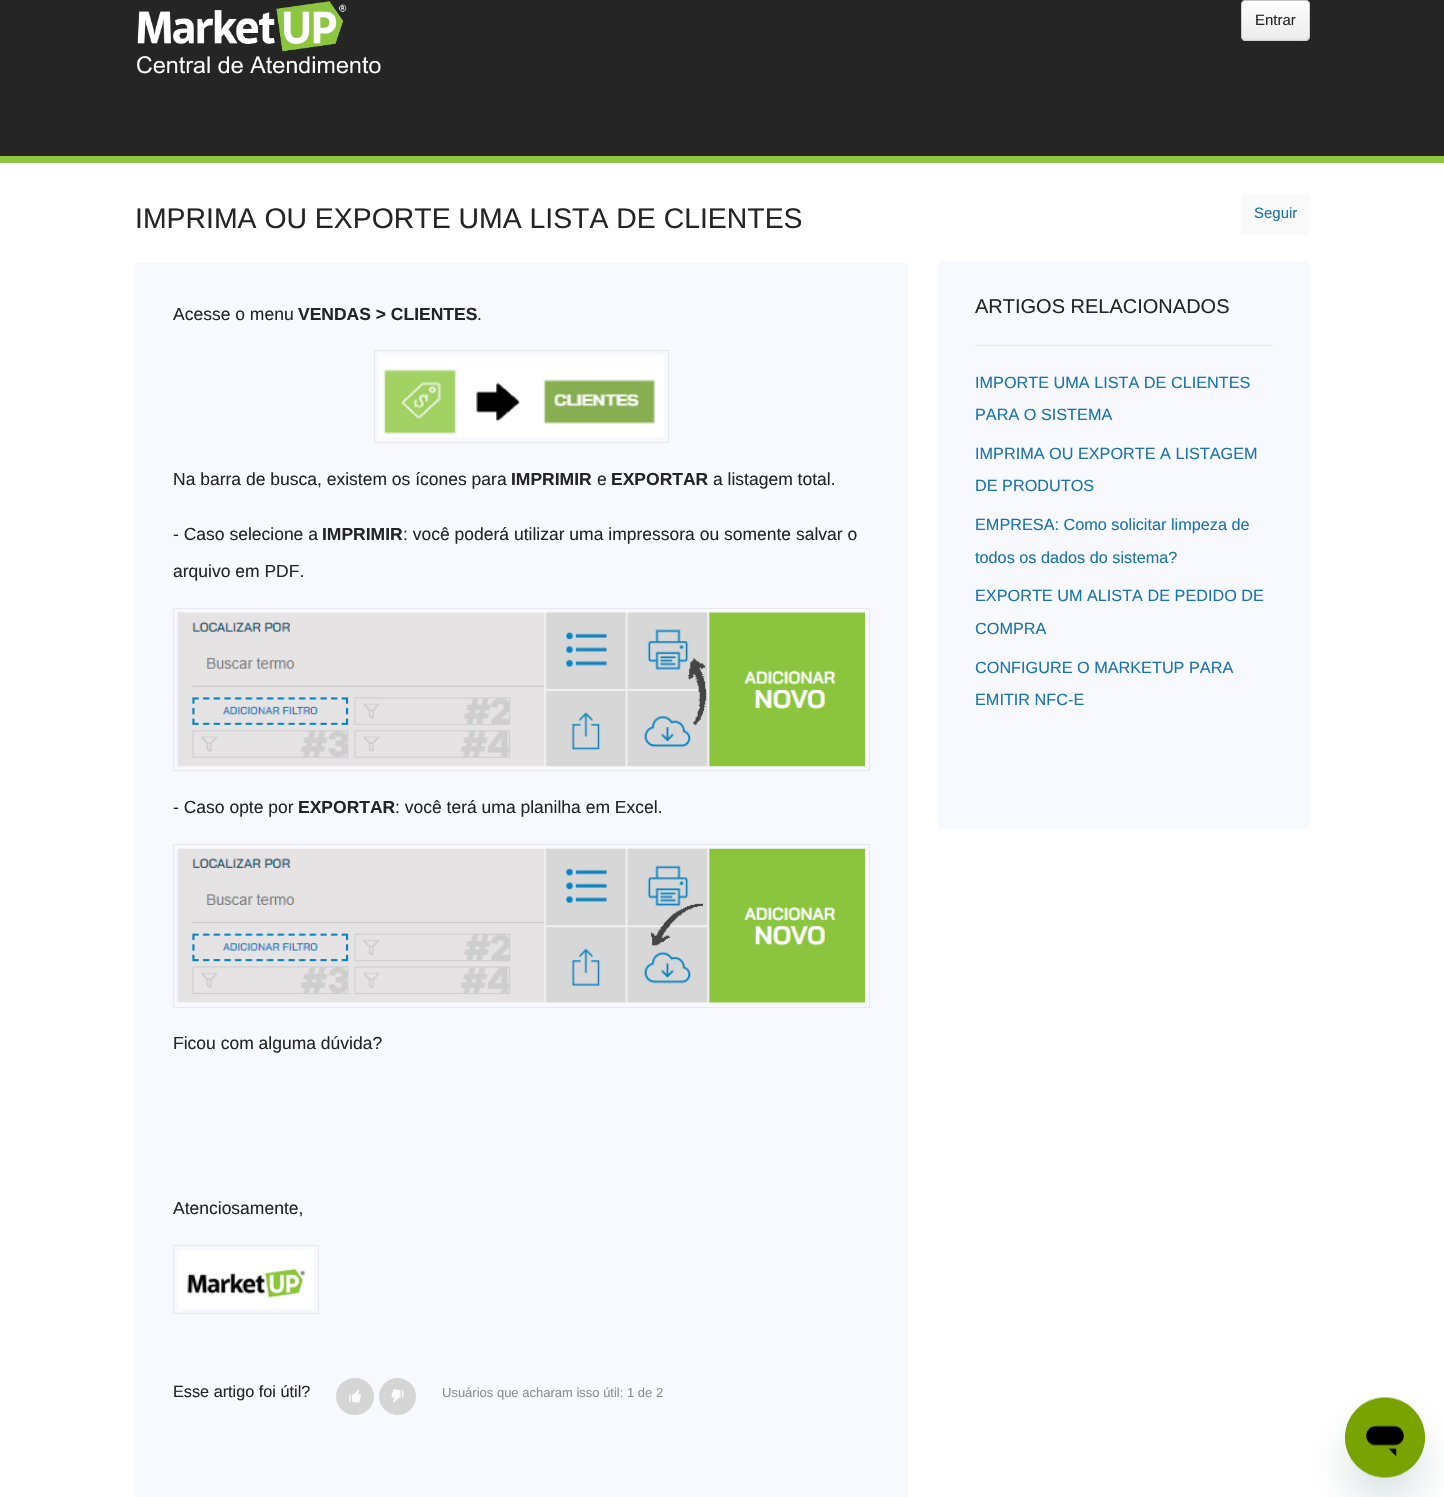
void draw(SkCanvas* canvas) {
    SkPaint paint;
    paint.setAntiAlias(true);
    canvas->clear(0xFFFFFFFF);
    paint.setColor(0xFF252525);
    canvas->drawRect(SkRect::MakeXYWH(0, 0, 1444, 156), paint);
    paint.setColor(0xFF8CC63F);
    canvas->drawRect(SkRect::MakeXYWH(0, 156, 1444, 7), paint);
    canvas->drawImageRect(SkImages::DeferredFromEncodedData(SkData::MakeFromFileName("img1.png")), SkRect::MakeXYWH(137, 1, 244, 73), SkSamplingOptions());
    canvas->save();
    canvas->clipPath(SkPathBuilder().moveTo(1245, 0).lineTo(1306, 0).cubicTo(1308, 0, 1310, 2, 1310, 4).lineTo(1310, 37).cubicTo(1310, 39, 1308, 41, 1306, 41).lineTo(1245, 41).cubicTo(1243, 41, 1241, 39, 1241, 37).lineTo(1241, 4).cubicTo(1241, 2, 1243, 0, 1245, 0).close().detach(), true);
    {
        const SkColor colors[] = {0xFFFFFFFF, 0xFFF4F4F4, 0xFFEDEDED};
        const float stops[] = {0, 0.5f, 1};
        const SkPoint ends[] = {{1276, -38}, {1276, 1.3f}};
        paint.setShader(SkGradientShader::MakeLinear(ends, colors, stops, 3, SkTileMode::kClamp));
        paint.setAlpha(255);
    }
    canvas->drawRect(SkRect::MakeXYWH(1241, 0, 69, 1), paint);
    {
        const SkColor colors[] = {0xFFFFFFFF, 0xFFF4F4F4, 0xFFEDEDED};
        const float stops[] = {0, 0.5f, 1};
        const SkPoint ends[] = {{1276, 1.2f}, {1276, 40}};
        paint.setShader(SkGradientShader::MakeLinear(ends, colors, stops, 3, SkTileMode::kClamp));
        paint.setAlpha(255);
    }
    canvas->drawRect(SkRect::MakeXYWH(1241, 1, 69, 39), paint);
    {
        const SkColor colors[] = {0xFFFFFFFF, 0xFFF4F4F4, 0xFFEDEDED};
        const float stops[] = {0, 0.5f, 1};
        const SkPoint ends[] = {{1276, 40}, {1276, 79}};
        paint.setShader(SkGradientShader::MakeLinear(ends, colors, stops, 3, SkTileMode::kClamp));
        paint.setAlpha(255);
    }
    canvas->drawRect(SkRect::MakeXYWH(1241, 40, 69, 1), paint);
    canvas->restore();
    paint.setShader(nullptr);
    paint.setColor(0x08000000);
    canvas->drawPath(SkPathBuilder().moveTo(1243, 37).cubicTo(1243, 38, 1244, 40, 1246, 40).lineTo(1296, 40).cubicTo(1305, 40, 1309, 43, 1309, 35).cubicTo(1309, 37, 1308, 38, 1306, 38).lineTo(1245, 38).close().detach(), paint);
    paint.setStyle(SkPaint::kStroke_Style);
    paint.setStrokeWidth(1);
    paint.setColor(0x2B000000);
    canvas->drawRoundRect(SkRect::MakeXYWH(1241.5f, 0.5f, 68, 40), 3.5f, 3.5f, paint);
    SkFont font1(fontMgr->matchFamilyStyle("Liberation Sans", SkFontStyle::Normal()), 15);
    font1.setSubpixel(true);
    paint.setStyle(SkPaint::kFill_Style);
    paint.setColor(0xFF252525);
    canvas->drawString("Entrar", 1255, 25, font1, paint);
    SkFont font2(fontMgr->matchFamilyStyle("Liberation Sans", SkFontStyle::Normal()), 28.4f);
    font2.setSubpixel(true);
    canvas->drawString("IMPRIMA OU EXPORTE UMA LISTA DE CLIENTES", 135, 228, font2, paint);
    paint.setColor(0xFFF8F8FF);
    canvas->drawRect(SkRect::MakeXYWH(135, 263, 773, 1234), paint);
    SkFont font3(fontMgr->matchFamilyStyle("Liberation Sans", SkFontStyle::Normal()), 17.5f);
    font3.setSubpixel(true);
    paint.setColor(0xFF252525);
    canvas->drawString("Acesse o menu", 173, 320, font3, paint);
    SkFont font4(fontMgr->matchFamilyStyle("Liberation Sans", SkFontStyle::Bold()), 17.5f);
    font4.setSubpixel(true);
    canvas->drawString("VENDAS > CLIENTES", 298, 320, font4, paint);
    canvas->drawString(".", 477, 320, font3, paint);
    paint.setStyle(SkPaint::kStroke_Style);
    paint.setColor(0xFFE7E7ED);
    canvas->drawRect(SkRect::MakeXYWH(374.5f, 350.5f, 294, 92), paint);
    canvas->drawImageRect(SkImages::DeferredFromEncodedData(SkData::MakeFromFileName("img2.png")), SkRect::MakeXYWH(379, 355, 285, 82), SkSamplingOptions());
    paint.setStyle(SkPaint::kFill_Style);
    paint.setColor(0xFF252525);
    canvas->drawString("Na barra de busca, existem os ícones para", 173, 485, font3, paint);
    canvas->drawString("IMPRIMIR", 511, 485, font4, paint);
    canvas->drawString("e", 597, 485, font3, paint);
    canvas->drawString("EXPORTAR", 611, 485, font4, paint);
    canvas->drawString("a listagem total.", 713, 485, font3, paint);
    canvas->drawString("- Caso selecione a", 173, 540, font3, paint);
    canvas->drawString("IMPRIMIR", 322, 540, font4, paint);
    canvas->drawString(": você poderá utilizar uma impressora ou somente salvar o", 403, 540, font3, paint);
    canvas->drawString("arquivo em PDF.", 173, 577, font3, paint);
    paint.setStyle(SkPaint::kStroke_Style);
    paint.setColor(0xFFE7E7ED);
    canvas->drawRect(SkRect::MakeXYWH(173.5f, 608.5f, 696, 162), paint);
    canvas->drawImageRect(SkImages::DeferredFromEncodedData(SkData::MakeFromFileName("img3.png")), SkRect::MakeXYWH(177, 612, 688, 155), SkSamplingOptions());
    paint.setStyle(SkPaint::kFill_Style);
    paint.setColor(0xFF252525);
    canvas->drawString("- Caso opte por", 173, 813, font3, paint);
    canvas->drawString("EXPORTAR", 298, 813, font4, paint);
    canvas->drawString(": você terá uma planilha em Excel.", 395, 813, font3, paint);
    paint.setStyle(SkPaint::kStroke_Style);
    paint.setColor(0xFFE7E7ED);
    canvas->drawRect(SkRect::MakeXYWH(173.5f, 844.5f, 696, 163), paint);
    canvas->drawImageRect(SkImages::DeferredFromEncodedData(SkData::MakeFromFileName("img4.png")), SkRect::MakeXYWH(177, 848, 688, 155), SkSamplingOptions());
    paint.setStyle(SkPaint::kFill_Style);
    paint.setColor(0xFF252525);
    canvas->drawString("Ficou com alguma dúvida?", 173, 1049, font3, paint);
    canvas->drawString("Atenciosamente,", 173, 1214, font3, paint);
    paint.setStyle(SkPaint::kStroke_Style);
    paint.setColor(0xFFE7E7ED);
    canvas->drawRect(SkRect::MakeXYWH(173.5f, 1245.5f, 145, 68), paint);
    canvas->drawImageRect(SkImages::DeferredFromEncodedData(SkData::MakeFromFileName("img5.png")), SkRect::MakeXYWH(178, 1250, 136, 59), SkSamplingOptions());
    SkFont font5(fontMgr->matchFamilyStyle("Liberation Sans", SkFontStyle::Normal()), 16.25f);
    font5.setSubpixel(true);
    paint.setStyle(SkPaint::kFill_Style);
    paint.setColor(0xFF252525);
    canvas->drawString("Esse artigo foi útil?", 173, 1397, font5, paint);
    paint.setColor(0xFFD5D5D5);
    canvas->drawRoundRect(SkRect::MakeXYWH(336, 1378, 38, 37), 18.5f, 18.5f, paint);
    canvas->drawImageRect(SkImages::DeferredFromEncodedData(SkData::MakeFromFileName("img6.png")), SkRect::MakeXYWH(349, 1389, 12, 14), SkSamplingOptions());
    canvas->drawCircle(397.5f, 1396.5f, 18.5f, paint);
    canvas->drawImageRect(SkImages::DeferredFromEncodedData(SkData::MakeFromFileName("img7.png")), SkRect::MakeXYWH(391, 1389, 13, 14), SkSamplingOptions());
    SkFont font6(fontMgr->matchFamilyStyle("Liberation Sans", SkFontStyle::Normal()), 13);
    font6.setSubpixel(true);
    paint.setColor(0xFF8E8E8E);
    canvas->drawString("Usuários que acharam isso útil: 1 de 2", 442, 1397, font6, paint);
    paint.setColor(0xFFF8F8FF);
    canvas->drawRect(SkRect::MakeXYWH(938, 261, 372, 568), paint);
    paint.setColor(0xFFE7E7ED);
    canvas->drawRect(SkRect::MakeXYWH(975, 345, 298, 1), paint);
    SkFont font7(fontMgr->matchFamilyStyle("Liberation Sans", SkFontStyle::Normal()), 20);
    font7.setSubpixel(true);
    paint.setColor(0xFF252525);
    canvas->drawString("ARTIGOS RELACIONADOS", 975, 313, font7, paint);
    paint.setColor(0xFF1A74B0);
    canvas->drawString("IMPORTE UMA LISTA DE CLIENTES", 975, 388, font5, paint);
    canvas->drawString("PARA O SISTEMA", 975, 420, font5, paint);
    canvas->drawString("IMPRIMA OU EXPORTE A LISTAGEM", 975, 459, font5, paint);
    canvas->drawString("DE PRODUTOS", 975, 491, font5, paint);
    canvas->drawString("EMPRESA: Como solicitar limpeza de", 975, 530, font5, paint);
    canvas->drawString("todos os dados do sistema?", 975, 563, font5, paint);
    canvas->drawString("EXPORTE UM ALISTA DE PEDIDO DE", 975, 601, font5, paint);
    canvas->drawString("COMPRA", 975, 634, font5, paint);
    canvas->drawString("CONFIGURE O MARKETUP PARA", 975, 673, font5, paint);
    canvas->drawString("EMITIR NFC-E", 975, 705, font5, paint);
    paint.setColor(0xFFFAFAFA);
    canvas->drawRoundRect(SkRect::MakeXYWH(1241, 194, 69, 41), 4, 4, paint);
    paint.setColor(0xFF1A74B0);
    canvas->drawString("Seguir", 1254, 218, font1, paint);
    paint.setColor(0x2617494D);
    paint.setMaskFilter(SkMaskFilter::MakeBlur(kNormal_SkBlurStyle, 19));
    canvas->drawRoundRect(SkRect::MakeXYWH(1345, 1423, 80, 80), 40, 40, paint);
    paint.setMaskFilter(nullptr);
    canvas->drawImageRect(SkImages::DeferredFromEncodedData(SkData::MakeFromFileName("img8.png")), SkRect::MakeXYWH(1345, 1397, 80, 81), SkSamplingOptions());
}
